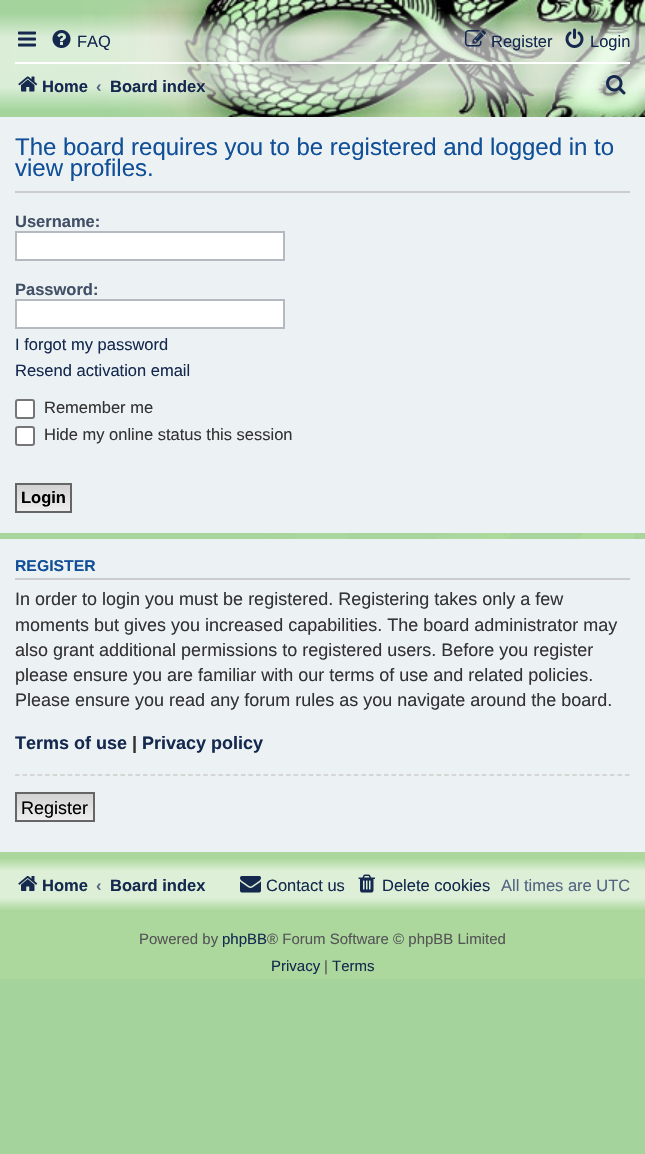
void draw(SkCanvas* canvas) {
    SkPaint paint;
    paint.setAntiAlias(true);
    canvas->clear(0xFFA4D39C);
    canvas->drawImageRect(SkImages::DeferredFromEncodedData(SkData::MakeFromFileName("img1.png")), SkRect::MakeXYWH(0, 0, 645, 979), SkSamplingOptions());
    canvas->drawImageRect(SkImages::DeferredFromEncodedData(SkData::MakeFromFileName("img2.png")), SkRect::MakeXYWH(18, 31, 18, 16), SkSamplingOptions());
    canvas->drawImageRect(SkImages::DeferredFromEncodedData(SkData::MakeFromFileName("img3.png")), SkRect::MakeXYWH(52, 30, 19, 18), SkSamplingOptions());
    SkFont font1(fontMgr->matchFamilyStyle("Liberation Sans", SkFontStyle::Normal()), 16.5f);
    font1.setSubpixel(true);
    paint.setColor(0xFF15294F);
    canvas->drawString("FAQ", 77, 47, font1, paint);
    canvas->drawImageRect(SkImages::DeferredFromEncodedData(SkData::MakeFromFileName("img4.png")), SkRect::MakeXYWH(465, 30, 21, 17), SkSamplingOptions());
    canvas->drawString("Register", 491, 47, font1, paint);
    canvas->drawImageRect(SkImages::DeferredFromEncodedData(SkData::MakeFromFileName("img5.png")), SkRect::MakeXYWH(565, 28, 19, 20), SkSamplingOptions());
    canvas->drawString("Login", 590, 47, font1, paint);
    paint.setColor(0xFFFFFFFF);
    canvas->drawRect(SkRect::MakeXYWH(15, 62, 615, 2), paint);
    canvas->drawImageRect(SkImages::DeferredFromEncodedData(SkData::MakeFromFileName("img6.png")), SkRect::MakeXYWH(18, 76, 20, 16), SkSamplingOptions());
    SkFont font2(fontMgr->matchFamilyStyle("Liberation Sans", SkFontStyle::Bold()), 16.5f);
    font2.setSubpixel(true);
    paint.setColor(0xFF15294F);
    canvas->drawString("Home", 42, 92, font2, paint);
    paint.setColor(0xFF536482);
    canvas->drawString("‹", 96, 92, font2, paint);
    paint.setColor(0xFF15294F);
    canvas->drawString("Board index", 110, 92, font2, paint);
    canvas->drawImageRect(SkImages::DeferredFromEncodedData(SkData::MakeFromFileName("img7.png")), SkRect::MakeXYWH(606, 75, 20, 20), SkSamplingOptions());
    paint.setColor(0xFFECF1F3);
    canvas->drawRect(SkRect::MakeXYWH(0, 117, 645, 416), paint);
    paint.setColor(0xFFCCCCCC);
    canvas->drawRect(SkRect::MakeXYWH(15, 191, 615, 2), paint);
    SkFont font3(fontMgr->matchFamilyStyle("Liberation Sans", SkFontStyle::Normal()), 24);
    font3.setSubpixel(true);
    paint.setColor(0xFF115098);
    canvas->drawString("The board requires you to be registered and logged in to", 15, 155, font3, paint);
    canvas->drawString("view profiles.", 15, 176, font3, paint);
    paint.setColor(0xFF425067);
    canvas->drawString("Username:", 15, 227, font2, paint);
    paint.setColor(0xFFFFFFFF);
    canvas->drawRect(SkRect::MakeXYWH(16, 232, 268, 28), paint);
    paint.setStyle(SkPaint::kStroke_Style);
    paint.setStrokeWidth(2);
    paint.setColor(0xFFB4BAC0);
    canvas->drawRect(SkRect::MakeXYWH(16, 232, 268, 28), paint);
    paint.setStyle(SkPaint::kFill_Style);
    paint.setColor(0xFF425067);
    canvas->drawString("Password:", 15, 295, font2, paint);
    paint.setColor(0xFFFFFFFF);
    canvas->drawRect(SkRect::MakeXYWH(16, 300, 268, 28), paint);
    paint.setStyle(SkPaint::kStroke_Style);
    paint.setColor(0xFFB4BAC0);
    canvas->drawRect(SkRect::MakeXYWH(16, 300, 268, 28), paint);
    paint.setStyle(SkPaint::kFill_Style);
    paint.setColor(0xFF15294F);
    canvas->drawString("I forgot my password", 15, 350, font1, paint);
    canvas->drawString("Resend activation email", 15, 376, font1, paint);
    paint.setColor(0xFFFFFFFF);
    canvas->drawRoundRect(SkRect::MakeXYWH(16, 400, 18, 18), 2, 2, paint);
    paint.setStyle(SkPaint::kStroke_Style);
    paint.setColor(0xFF767676);
    canvas->drawRoundRect(SkRect::MakeXYWH(16, 400, 18, 18), 2, 2, paint);
    paint.setStyle(SkPaint::kFill_Style);
    paint.setColor(0xFF333333);
    canvas->drawString("Remember me", 44, 413, font1, paint);
    paint.setColor(0xFFFFFFFF);
    canvas->drawRoundRect(SkRect::MakeXYWH(16, 427, 18, 18), 2, 2, paint);
    paint.setStyle(SkPaint::kStroke_Style);
    paint.setColor(0xFF767676);
    canvas->drawRoundRect(SkRect::MakeXYWH(16, 427, 18, 18), 2, 2, paint);
    paint.setStyle(SkPaint::kFill_Style);
    paint.setColor(0xFF333333);
    canvas->drawString("Hide my online status this session", 44, 440, font1, paint);
    {
        const SkColor colors[] = {0xFFD2D2D2, 0xFFEFEFEF};
        const float stops[] = {0, 1};
        const SkPoint ends[] = {{44, 485}, {44, 512}};
        paint.setShader(SkGradientShader::MakeLinear(ends, colors, stops, 2, SkTileMode::kClamp));
        paint.setAlpha(255);
    }
    canvas->drawRect(SkRect::MakeXYWH(17, 485, 53, 26), paint);
    paint.setStyle(SkPaint::kStroke_Style);
    paint.setShader(nullptr);
    paint.setColor(0xFF666666);
    canvas->drawRect(SkRect::MakeXYWH(16, 484, 55, 28), paint);
    paint.setStyle(SkPaint::kFill_Style);
    paint.setColor(0xFF000000);
    canvas->drawString("Login", 21, 503, font2, paint);
    paint.setColor(0xFFECF1F3);
    canvas->drawRect(SkRect::MakeXYWH(0, 539, 645, 313), paint);
    paint.setColor(0xFFCCCCCC);
    canvas->drawRect(SkRect::MakeXYWH(15, 578, 615, 2), paint);
    SkFont font4(fontMgr->matchFamilyStyle("Liberation Sans", SkFontStyle::Bold()), 15.75f);
    font4.setSubpixel(true);
    paint.setColor(0xFF115098);
    canvas->drawString("REGISTER", 15, 571, font4, paint);
    SkFont font5(fontMgr->matchFamilyStyle("Liberation Sans", SkFontStyle::Normal()), 18);
    font5.setSubpixel(true);
    paint.setColor(0xFF333333);
    canvas->drawString("In order to login you must be registered. Registering takes only a few", 15, 605, font5, paint);
    canvas->drawString("moments but gives you increased capabilities. The board administrator may", 15, 631, font5, paint);
    canvas->drawString("also grant additional permissions to registered users. Before you register", 15, 656, font5, paint);
    canvas->drawString("please ensure you are familiar with our terms of use and related policies.", 15, 681, font5, paint);
    canvas->drawString("Please ensure you read any forum rules as you navigate around the board.", 15, 706, font5, paint);
    SkFont font6(fontMgr->matchFamilyStyle("Liberation Sans", SkFontStyle::Bold()), 18);
    font6.setSubpixel(true);
    paint.setColor(0xFF15294F);
    canvas->drawString("Terms of use", 15, 749, font6, paint);
    paint.setColor(0xFF333333);
    canvas->drawString("|", 132, 749, font6, paint);
    paint.setColor(0xFF15294F);
    canvas->drawString("Privacy policy", 142, 749, font6, paint);
    paint.setStyle(SkPaint::kStroke_Style);
    paint.setStrokeWidth(1.5f);
    paint.setColor(0xFFCCCCCC);
    paint.setPathEffect(SkDashPathEffect::Make({{4.5f, 3.03f}}, 0));
    canvas->drawPath(SkPathBuilder().moveTo(15, 775).lineTo(630, 775).detach(), paint);
    paint.setPathEffect(nullptr);
    paint.setStyle(SkPaint::kFill_Style);
    {
        const SkColor colors[] = {0xFFD2D2D2, 0xFFEFEFEF};
        const float stops[] = {0, 1};
        const SkPoint ends[] = {{55, 794}, {55, 821}};
        paint.setShader(SkGradientShader::MakeLinear(ends, colors, stops, 2, SkTileMode::kClamp));
        paint.setAlpha(255);
    }
    canvas->drawRect(SkRect::MakeXYWH(17, 794, 76, 26), paint);
    paint.setStyle(SkPaint::kStroke_Style);
    paint.setStrokeWidth(2);
    paint.setShader(nullptr);
    paint.setColor(0xFF666666);
    canvas->drawRect(SkRect::MakeXYWH(16, 793, 78, 28), paint);
    paint.setStyle(SkPaint::kFill_Style);
    paint.setColor(0xFF000000);
    canvas->drawString("Register", 21, 814, font5, paint);
    {
        const SkColor colors[] = {0xFFABD79C, 0xFFDDEFD7, 0xFFDDEFD7, 0xFFABD79C};
        const float stops[] = {0, 0.25f, 0.75f, 1};
        const SkPoint ends[] = {{323, 858}, {323, 911}};
        paint.setShader(SkGradientShader::MakeLinear(ends, colors, stops, 4, SkTileMode::kClamp));
        paint.setAlpha(255);
    }
    canvas->drawRect(SkRect::MakeXYWH(0, 859, 645, 51), paint);
    canvas->drawImageRect(SkImages::DeferredFromEncodedData(SkData::MakeFromFileName("img8.png")), SkRect::MakeXYWH(18, 876, 20, 15), SkSamplingOptions());
    paint.setShader(nullptr);
    paint.setColor(0xFF15294F);
    canvas->drawString("Home", 42, 891, font2, paint);
    paint.setColor(0xFF536482);
    canvas->drawString("‹", 96, 891, font2, paint);
    paint.setColor(0xFF15294F);
    canvas->drawString("Board index", 110, 891, font2, paint);
    canvas->drawImageRect(SkImages::DeferredFromEncodedData(SkData::MakeFromFileName("img9.png")), SkRect::MakeXYWH(240, 876, 21, 17), SkSamplingOptions());
    canvas->drawString("Contact us", 266, 891, font1, paint);
    canvas->drawImageRect(SkImages::DeferredFromEncodedData(SkData::MakeFromFileName("img10.png")), SkRect::MakeXYWH(358, 874, 17, 19), SkSamplingOptions());
    canvas->drawString("Delete cookies", 382, 891, font1, paint);
    paint.setColor(0xFF536482);
    canvas->drawString("All times are UTC", 501, 891, font1, paint);
    SkFont font7(fontMgr->matchFamilyStyle("Liberation Sans", SkFontStyle::Normal()), 15);
    font7.setSubpixel(true);
    paint.setColor(0xFF555555);
    canvas->drawString("Powered by", 139, 944, font7, paint);
    paint.setColor(0xFF15294F);
    canvas->drawString("phpBB", 222, 944, font7, paint);
    paint.setColor(0xFF555555);
    canvas->drawString("® Forum Software © phpBB Limited", 267, 944, font7, paint);
    paint.setColor(0xFF15294F);
    canvas->drawString("Privacy", 271, 971, font7, paint);
    paint.setColor(0xFF555555);
    canvas->drawString("|", 324, 971, font7, paint);
    paint.setColor(0xFF15294F);
    canvas->drawString("Terms", 332, 971, font7, paint);
}
